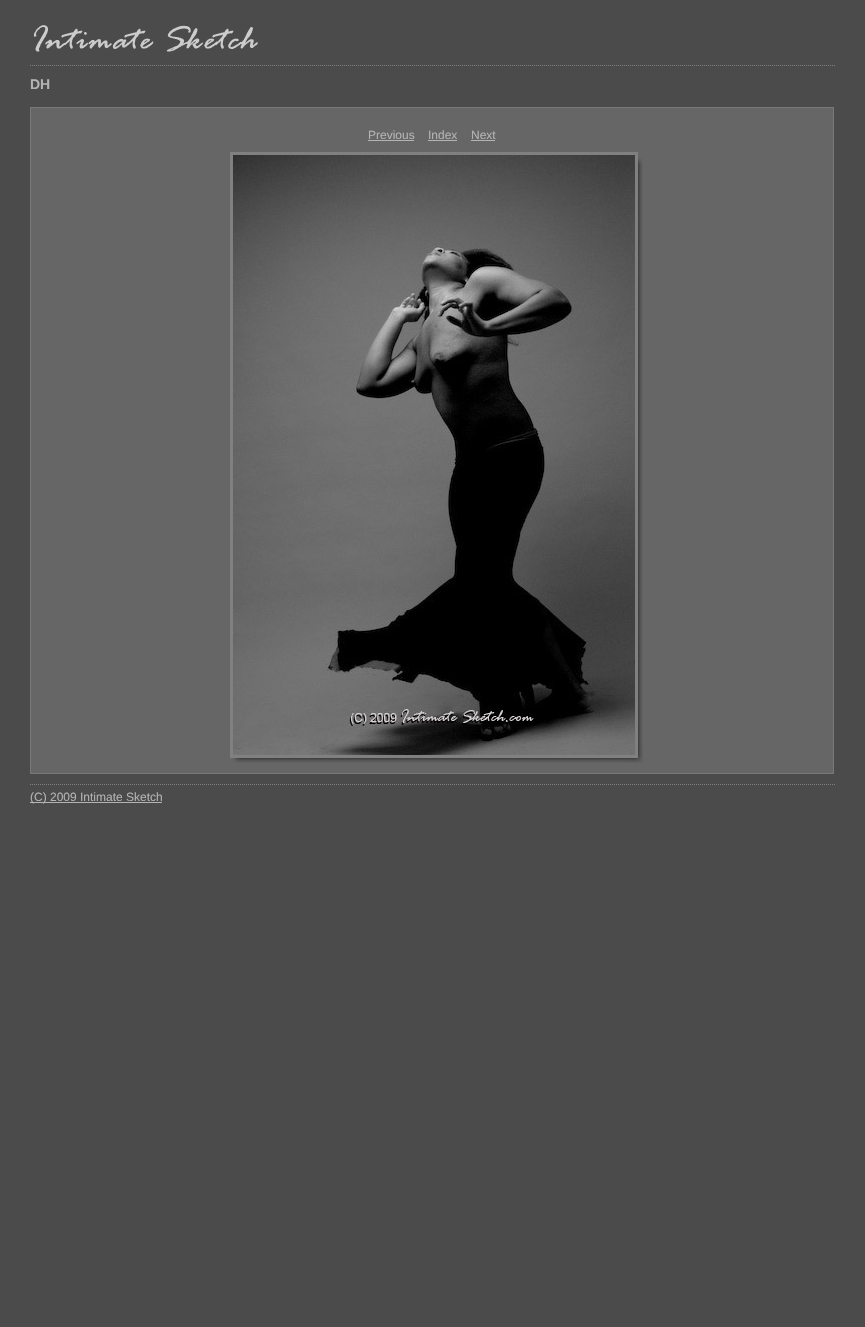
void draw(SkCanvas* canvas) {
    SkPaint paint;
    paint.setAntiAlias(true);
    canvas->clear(0xFF4B4B4B);
    canvas->drawImageRect(SkImages::DeferredFromEncodedData(SkData::MakeFromFileName("img1.png")), SkRect::MakeXYWH(33, 25, 225, 27), SkSamplingOptions());
    paint.setStyle(SkPaint::kStroke_Style);
    paint.setStrokeWidth(1);
    paint.setColor(0xFF808080);
    paint.setPathEffect(SkDashPathEffect::Make({{1, 1}}, 0));
    canvas->drawPath(SkPathBuilder().moveTo(30, 65.5f).lineTo(836, 65.5f).detach(), paint);
    paint.setPathEffect(nullptr);
    SkFont font1(fontMgr->matchFamilyStyle("Liberation Sans", SkFontStyle::Bold()), 14);
    font1.setSubpixel(true);
    paint.setStyle(SkPaint::kFill_Style);
    paint.setColor(0xFFB3B3B3);
    canvas->drawString("DH", 30, 89, font1, paint);
    paint.setStyle(SkPaint::kStroke_Style);
    paint.setColor(0xFF808080);
    paint.setPathEffect(SkDashPathEffect::Make({{1, 1}}, 0));
    canvas->drawPath(SkPathBuilder().moveTo(30, 784.5f).lineTo(836, 784.5f).detach(), paint);
    paint.setPathEffect(nullptr);
    paint.setStyle(SkPaint::kFill_Style);
    paint.setColor(0xFF666666);
    canvas->drawRect(SkRect::MakeXYWH(30.5f, 107.5f, 803, 666), paint);
    paint.setStyle(SkPaint::kStroke_Style);
    paint.setColor(0xFF787878);
    canvas->drawRect(SkRect::MakeXYWH(30.5f, 107.5f, 803, 666), paint);
    SkFont font2(fontMgr->matchFamilyStyle("Liberation Sans", SkFontStyle::Normal()), 12);
    font2.setSubpixel(true);
    paint.setStyle(SkPaint::kFill_Style);
    paint.setColor(0xFFB3B3B3);
    canvas->drawString("Previous", 368, 139, font2, paint);
    canvas->drawRect(SkRect::MakeXYWH(368, 140, 46, 1), paint);
    canvas->drawString("Index", 428, 139, font2, paint);
    canvas->drawRect(SkRect::MakeXYWH(428, 140, 29, 1), paint);
    canvas->drawString("Next", 471, 139, font2, paint);
    canvas->drawRect(SkRect::MakeXYWH(471, 140, 24, 1), paint);
    canvas->drawImageRect(SkImages::DeferredFromEncodedData(SkData::MakeFromFileName("img2.png")), SkRect::MakeXYWH(240, 165, 403, 598), SkSamplingOptions());
    paint.setStyle(SkPaint::kStroke_Style);
    paint.setStrokeWidth(3);
    paint.setColor(0xFF808080);
    canvas->drawRect(SkRect::MakeXYWH(231.5f, 153.5f, 405, 603), paint);
    canvas->drawImageRect(SkImages::DeferredFromEncodedData(SkData::MakeFromFileName("img3.png")), SkRect::MakeXYWH(233, 155, 402, 600), SkSamplingOptions());
    canvas->drawImageRect(SkImages::DeferredFromEncodedData(SkData::MakeFromFileName("img4.png")), SkRect::MakeXYWH(638, 158, 5, 7), SkSamplingOptions());
    canvas->drawImageRect(SkImages::DeferredFromEncodedData(SkData::MakeFromFileName("img5.png")), SkRect::MakeXYWH(233, 758, 7, 5), SkSamplingOptions());
    paint.setStyle(SkPaint::kFill_Style);
    paint.setColor(0xFFB3B3B3);
    canvas->drawRect(SkRect::MakeXYWH(30, 802, 132, 1), paint);
    canvas->drawString("(C) 2009 Intimate Sketch", 30, 801, font2, paint);
}
